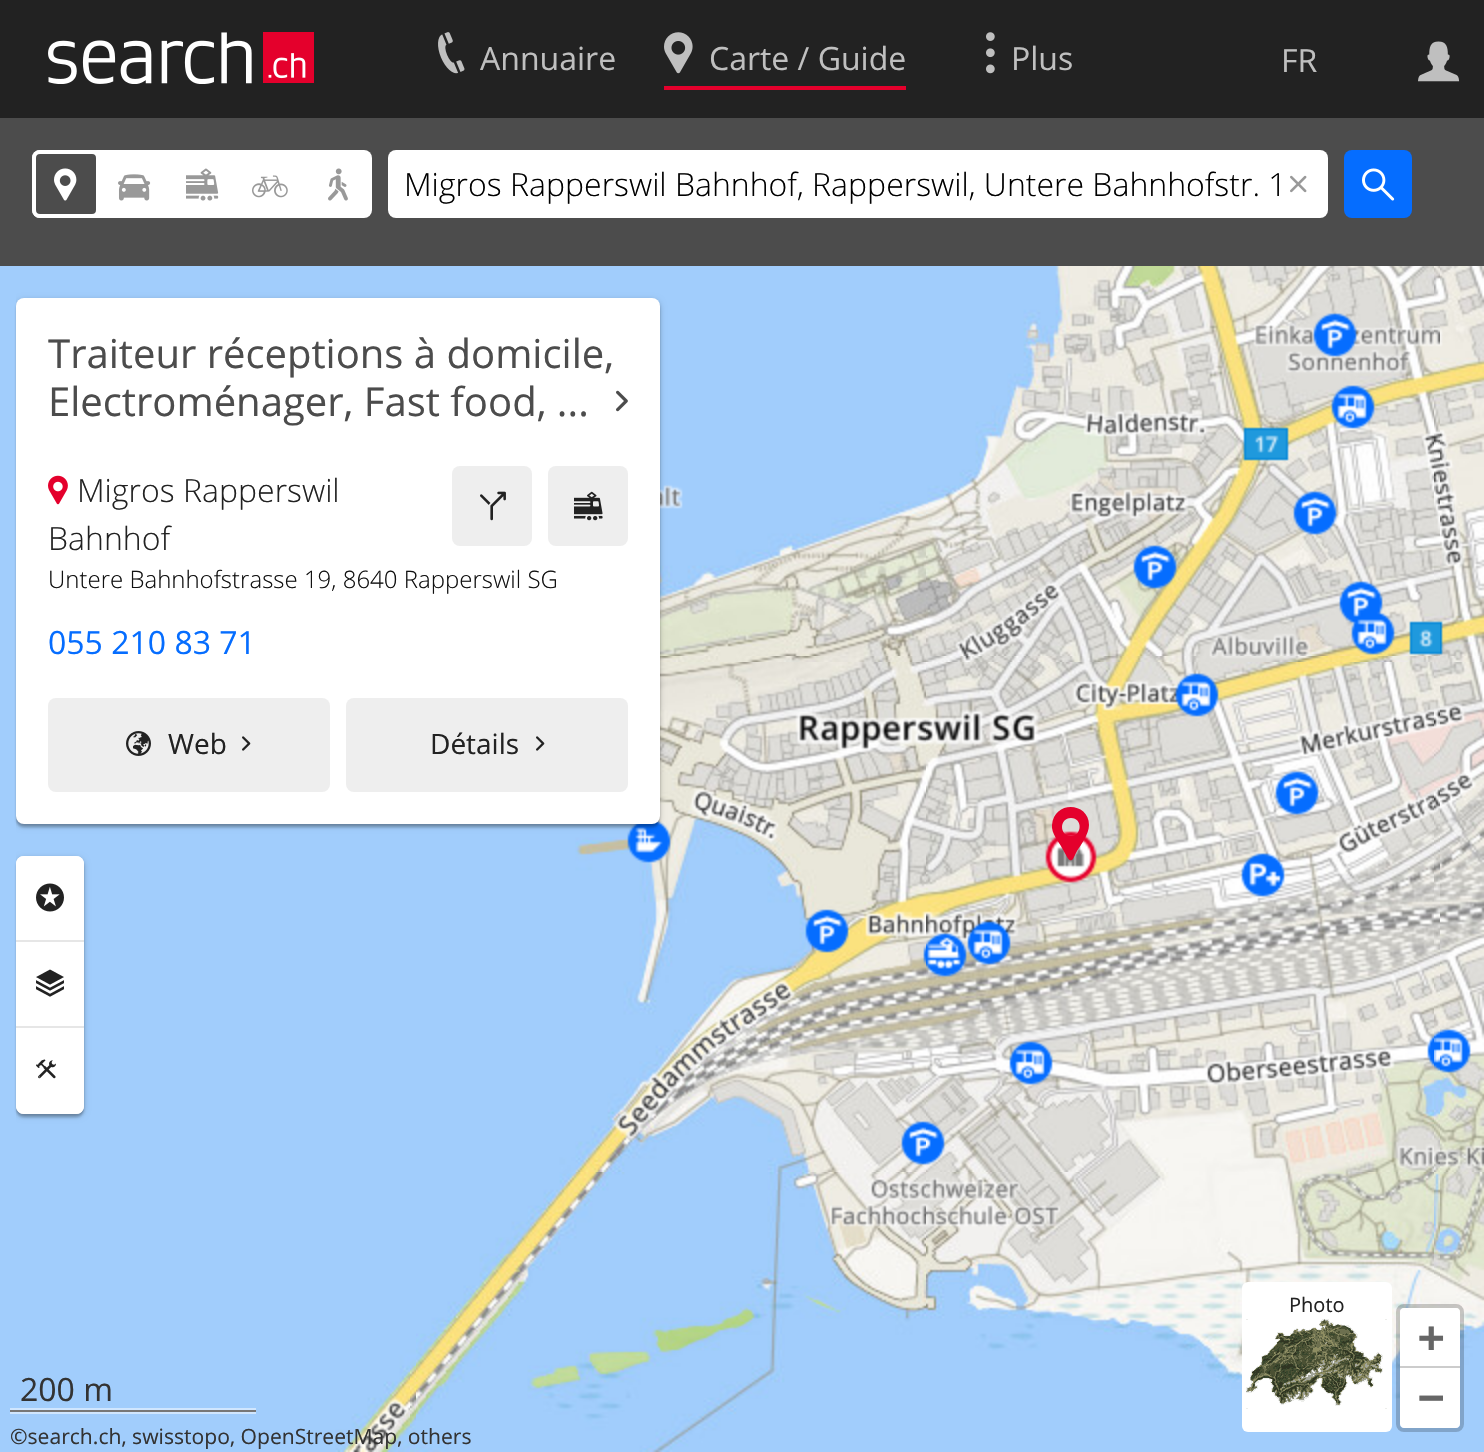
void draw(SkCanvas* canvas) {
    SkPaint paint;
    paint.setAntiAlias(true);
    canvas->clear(0xFFFFFFFF);
    paint.setColor(0xFF222222);
    canvas->drawRect(SkRect::MakeXYWH(0, 0, 1484, 118), paint);
    canvas->drawImageRect(SkImages::DeferredFromEncodedData(SkData::MakeFromFileName("img1.png")), SkRect::MakeXYWH(48, 32, 266, 52), SkSamplingOptions());
    canvas->drawImageRect(SkImages::DeferredFromEncodedData(SkData::MakeFromFileName("img2.png")), SkRect::MakeXYWH(438, 32, 27, 42), SkSamplingOptions());
    SkFont font1(fontMgr->matchFamilyStyle("Open Sans", SkFontStyle::Normal()), 32);
    font1.setSubpixel(true);
    paint.setColor(0xFFBFBFBF);
    canvas->drawString("Annuaire", 480, 70, font1, paint);
    paint.setColor(0xFFE4002C);
    canvas->drawRect(SkRect::MakeXYWH(664, 86, 242, 4), paint);
    canvas->drawImageRect(SkImages::DeferredFromEncodedData(SkData::MakeFromFileName("img3.png")), SkRect::MakeXYWH(664, 32, 29, 42), SkSamplingOptions());
    paint.setColor(0xFFBFBFBF);
    canvas->drawString("Carte / Guide", 709, 70, font1, paint);
    canvas->drawImageRect(SkImages::DeferredFromEncodedData(SkData::MakeFromFileName("img4.png")), SkRect::MakeXYWH(986, 32, 9, 42), SkSamplingOptions());
    canvas->drawString("Plus", 1011, 70, font1, paint);
    canvas->drawString("FR", 1281, 72, font1, paint);
    canvas->drawImageRect(SkImages::DeferredFromEncodedData(SkData::MakeFromFileName("img5.png")), SkRect::MakeXYWH(1418, 41, 42, 41), SkSamplingOptions());
    paint.setColor(0xFF4C4C4C);
    canvas->drawRect(SkRect::MakeXYWH(0, 118, 1484, 148), paint);
    paint.setColor(0xFFFFFFFF);
    canvas->drawRoundRect(SkRect::MakeXYWH(32, 150, 340, 68), 8, 8, paint);
    paint.setColor(0xFF4C4C4C);
    canvas->drawRoundRect(SkRect::MakeXYWH(34, 152, 64, 64), 6, 6, paint);
    paint.setStyle(SkPaint::kStroke_Style);
    paint.setStrokeWidth(4);
    paint.setColor(0xFFFFFFFF);
    canvas->drawRoundRect(SkRect::MakeXYWH(34, 152, 64, 64), 6, 6, paint);
    canvas->drawImageRect(SkImages::DeferredFromEncodedData(SkData::MakeFromFileName("img6.png")), SkRect::MakeXYWH(54, 168, 23, 33), SkSamplingOptions());
    canvas->drawImageRect(SkImages::DeferredFromEncodedData(SkData::MakeFromFileName("img7.png")), SkRect::MakeXYWH(118, 174, 33, 27), SkSamplingOptions());
    canvas->drawImageRect(SkImages::DeferredFromEncodedData(SkData::MakeFromFileName("img8.png")), SkRect::MakeXYWH(186, 168, 33, 33), SkSamplingOptions());
    canvas->drawImageRect(SkImages::DeferredFromEncodedData(SkData::MakeFromFileName("img9.png")), SkRect::MakeXYWH(252, 175, 36, 23), SkSamplingOptions());
    canvas->drawImageRect(SkImages::DeferredFromEncodedData(SkData::MakeFromFileName("img10.png")), SkRect::MakeXYWH(328, 168, 20, 33), SkSamplingOptions());
    paint.setStyle(SkPaint::kFill_Style);
    canvas->drawRoundRect(SkRect::MakeXYWH(388, 150, 940, 68), 8, 8, paint);
    SkFont font2(fontMgr->matchFamilyStyle("Open Sans", SkFontStyle(300, SkFontStyle::kNormal_Width, SkFontStyle::kUpright_Slant)), 32);
    font2.setSubpixel(true);
    paint.setColor(0xFF000000);
    canvas->drawString("Migros Rapperswil Bahnhof, Rapperswil, Untere Bahnhofstr. 1", 404, 196, font2, paint);
    canvas->drawImageRect(SkImages::DeferredFromEncodedData(SkData::MakeFromFileName("img11.png")), SkRect::MakeXYWH(1290, 175, 17, 18), SkSamplingOptions());
    paint.setColor(0xFF056DFF);
    canvas->drawRoundRect(SkRect::MakeXYWH(1344, 150, 68, 68), 8, 8, paint);
    canvas->drawImageRect(SkImages::DeferredFromEncodedData(SkData::MakeFromFileName("img12.png")), SkRect::MakeXYWH(1362, 168, 33, 33), SkSamplingOptions());
    paint.setColor(0xFFA1CDFC);
    canvas->drawRect(SkRect::MakeXYWH(0, 266, 416, 396), paint);
    canvas->drawImageRect(SkImages::DeferredFromEncodedData(SkData::MakeFromFileName("img23.png")), SkRect::MakeXYWH(416, 266, 1024, 396), SkSamplingOptions());
    canvas->drawImageRect(SkImages::DeferredFromEncodedData(SkData::MakeFromFileName("img25.png")), SkRect::MakeXYWH(0, 662, 416, 790), SkSamplingOptions());
    canvas->drawImageRect(SkImages::DeferredFromEncodedData(SkData::MakeFromFileName("img26.png")), SkRect::MakeXYWH(416, 662, 1024, 790), SkSamplingOptions());
    canvas->drawImageRect(SkImages::DeferredFromEncodedData(SkData::MakeFromFileName("img28.png")), SkRect::MakeXYWH(660, 313, 780, 349), SkSamplingOptions());
    canvas->drawImageRect(SkImages::DeferredFromEncodedData(SkData::MakeFromFileName("img30.png")), SkRect::MakeXYWH(612, 662, 828, 566), SkSamplingOptions());
    canvas->save();
    canvas->clipRect(SkRect::MakeXYWH(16, 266, 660, 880));
    paint.setColor(0x33000000);
    paint.setMaskFilter(SkMaskFilter::MakeBlur(kNormal_SkBlurStyle, 3));
    canvas->drawRoundRect(SkRect::MakeXYWH(16, 300, 644, 526), 8, 8, paint);
    paint.setMaskFilter(nullptr);
    canvas->restore();
    paint.setColor(0x1F000000);
    paint.setMaskFilter(SkMaskFilter::MakeBlur(kNormal_SkBlurStyle, 1));
    canvas->drawRoundRect(SkRect::MakeXYWH(16, 302, 644, 526), 8, 8, paint);
    paint.setMaskFilter(nullptr);
    paint.setColor(0x24000000);
    paint.setMaskFilter(SkMaskFilter::MakeBlur(kNormal_SkBlurStyle, 1));
    canvas->drawRoundRect(SkRect::MakeXYWH(16, 300, 644, 526), 8, 8, paint);
    paint.setMaskFilter(nullptr);
    paint.setColor(0xFFFFFFFF);
    canvas->drawRoundRect(SkRect::MakeXYWH(16, 298, 644, 526), 8, 8, paint);
    SkFont font3(fontMgr->matchFamilyStyle("Open Sans", SkFontStyle::Normal()), 40);
    font3.setSubpixel(true);
    paint.setColor(0xFF4C4C4C);
    canvas->drawString("Traiteur réceptions à domicile,", 48, 368, font3, paint);
    canvas->drawString("Electroménager, Fast food, ...", 48, 416, font3, paint);
    canvas->drawImageRect(SkImages::DeferredFromEncodedData(SkData::MakeFromFileName("img13.png")), SkRect::MakeXYWH(616, 390, 12, 22), SkSamplingOptions());
    canvas->drawImageRect(SkImages::DeferredFromEncodedData(SkData::MakeFromFileName("img14.png")), SkRect::MakeXYWH(48, 475, 20, 30), SkSamplingOptions());
    paint.setColor(0xFF222222);
    canvas->drawString("Migros Rapperswil", 77, 502, font2, paint);
    canvas->drawString("Bahnhof", 48, 550, font2, paint);
    paint.setColor(0xFFEEEEEE);
    canvas->drawRoundRect(SkRect::MakeXYWH(452, 466, 80, 80), 8, 8, paint);
    canvas->drawImageRect(SkImages::DeferredFromEncodedData(SkData::MakeFromFileName("img15.png")), SkRect::MakeXYWH(480, 491, 26, 30), SkSamplingOptions());
    canvas->drawRoundRect(SkRect::MakeXYWH(548, 466, 80, 80), 8, 8, paint);
    canvas->drawImageRect(SkImages::DeferredFromEncodedData(SkData::MakeFromFileName("img16.png")), SkRect::MakeXYWH(574, 491, 29, 30), SkSamplingOptions());
    SkFont font4(fontMgr->matchFamilyStyle("Open Sans", SkFontStyle(300, SkFontStyle::kNormal_Width, SkFontStyle::kUpright_Slant)), 24);
    font4.setSubpixel(true);
    paint.setColor(0xFF111111);
    canvas->drawString("Untere Bahnhofstrasse 19, 8640 Rapperswil SG", 48, 588, font4, paint);
    paint.setColor(0xFF056DFF);
    canvas->drawString("055 210 83 71", 48, 654, font1, paint);
    paint.setColor(0xFFEEEEEE);
    canvas->drawRoundRect(SkRect::MakeXYWH(48, 698, 282, 94), 8, 8, paint);
    canvas->drawImageRect(SkImages::DeferredFromEncodedData(SkData::MakeFromFileName("img17.png")), SkRect::MakeXYWH(126, 731, 25, 25), SkSamplingOptions());
    SkFont font5(fontMgr->matchFamilyStyle("Open Sans", SkFontStyle::Normal()), 28);
    font5.setSubpixel(true);
    paint.setColor(0xFF222222);
    canvas->drawString("Web", 168, 754, font5, paint);
    canvas->drawImageRect(SkImages::DeferredFromEncodedData(SkData::MakeFromFileName("img18.png")), SkRect::MakeXYWH(242, 736, 9, 15), SkSamplingOptions());
    paint.setColor(0xFFEEEEEE);
    canvas->drawRoundRect(SkRect::MakeXYWH(346, 698, 282, 94), 8, 8, paint);
    paint.setColor(0xFF222222);
    canvas->drawString("Détails", 430, 754, font5, paint);
    canvas->drawImageRect(SkImages::DeferredFromEncodedData(SkData::MakeFromFileName("img18.png")), SkRect::MakeXYWH(536, 736, 9, 15), SkSamplingOptions());
    canvas->save();
    canvas->clipRect(SkRect::MakeXYWH(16, 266, 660, 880));
    paint.setColor(0x33000000);
    paint.setMaskFilter(SkMaskFilter::MakeBlur(kNormal_SkBlurStyle, 3));
    canvas->drawRoundRect(SkRect::MakeXYWH(16, 858, 68, 258), 8, 8, paint);
    paint.setMaskFilter(nullptr);
    canvas->restore();
    paint.setColor(0x1F000000);
    paint.setMaskFilter(SkMaskFilter::MakeBlur(kNormal_SkBlurStyle, 1));
    canvas->drawRoundRect(SkRect::MakeXYWH(16, 860, 68, 258), 8, 8, paint);
    paint.setMaskFilter(nullptr);
    paint.setColor(0x24000000);
    paint.setMaskFilter(SkMaskFilter::MakeBlur(kNormal_SkBlurStyle, 1));
    canvas->drawRoundRect(SkRect::MakeXYWH(16, 858, 68, 258), 8, 8, paint);
    paint.setMaskFilter(nullptr);
    paint.setColor(0xFFFFFFFF);
    canvas->drawRoundRect(SkRect::MakeXYWH(16, 856, 68, 258), 8, 8, paint);
    canvas->drawPath(SkPathBuilder().moveTo(24, 856).lineTo(76, 856).cubicTo(80.5f, 856, 84, 859.5f, 84, 864).lineTo(84, 942).lineTo(16, 942).lineTo(16, 864).cubicTo(16, 859.5f, 19.5f, 856, 24, 856).close().detach(), paint);
    paint.setColor(0xFFE6E6E6);
    canvas->drawRect(SkRect::MakeXYWH(16, 940, 68, 2), paint);
    canvas->drawImageRect(SkImages::DeferredFromEncodedData(SkData::MakeFromFileName("img19.png")), SkRect::MakeXYWH(36, 883, 28, 29), SkSamplingOptions());
    canvas->drawRect(SkRect::MakeXYWH(16, 1026, 68, 2), paint);
    canvas->drawImageRect(SkImages::DeferredFromEncodedData(SkData::MakeFromFileName("img20.png")), SkRect::MakeXYWH(36, 969, 28, 28), SkSamplingOptions());
    paint.setColor(0xFFFFFFFF);
    canvas->drawPath(SkPathBuilder().moveTo(16, 1028).lineTo(84, 1028).lineTo(84, 1106).cubicTo(84, 1110.5f, 80.5f, 1114, 76, 1114).lineTo(24, 1114).cubicTo(19.5f, 1114, 16, 1110.5f, 16, 1106).close().detach(), paint);
    canvas->drawImageRect(SkImages::DeferredFromEncodedData(SkData::MakeFromFileName("img21.png")), SkRect::MakeXYWH(36, 1059, 20, 20), SkSamplingOptions());
    canvas->drawRoundRect(SkRect::MakeXYWH(1242, 1282, 150, 150), 6, 6, paint);
    canvas->drawImageRect(SkImages::DeferredFromEncodedData(SkData::MakeFromFileName("img22.png")), SkRect::MakeXYWH(1246, 1319, 141, 90), SkSamplingOptions());
    SkFont font6(fontMgr->matchFamilyStyle("Open Sans", SkFontStyle::Normal()), 20);
    font6.setSubpixel(true);
    paint.setColor(0xFF222222);
    canvas->drawString("Photo", 1289, 1312, font6, paint);
    canvas->drawImageRect(SkImages::DeferredFromEncodedData(SkData::MakeFromFileName("img24.png")), SkRect::MakeXYWH(1440, 266, 44, 396), SkSamplingOptions());
    canvas->drawImageRect(SkImages::DeferredFromEncodedData(SkData::MakeFromFileName("img27.png")), SkRect::MakeXYWH(1440, 662, 44, 790), SkSamplingOptions());
    canvas->drawImageRect(SkImages::DeferredFromEncodedData(SkData::MakeFromFileName("img29.png")), SkRect::MakeXYWH(1440, 327, 25, 328), SkSamplingOptions());
    canvas->drawImageRect(SkImages::DeferredFromEncodedData(SkData::MakeFromFileName("img31.png")), SkRect::MakeXYWH(1440, 702, 44, 467), SkSamplingOptions());
    canvas->drawImageRect(SkImages::DeferredFromEncodedData(SkData::MakeFromFileName("img32.png")), SkRect::MakeXYWH(344, 1396, 66, 56), SkSamplingOptions());
    paint.setColor(0xFFE4002C);
    canvas->drawPath(SkPathBuilder().moveTo(1089, 825).cubicTo(1089, 802, 1054, 800, 1052, 825).cubicTo(1051, 833, 1059, 842, 1062, 848).lineTo(1066, 855).cubicTo(1067, 857, 1070, 863, 1073, 859).lineTo(1077, 851).cubicTo(1081, 845, 1089, 834, 1089, 825).close().moveTo(1071, 836).cubicTo(1059, 836, 1059, 818, 1071, 818).cubicTo(1083, 818, 1082, 836, 1071, 836).close().detach(), paint);
    paint.setStyle(SkPaint::kStroke_Style);
    paint.setColor(0x33000000);
    canvas->drawRoundRect(SkRect::MakeXYWH(1398, 1306, 64, 124), 6, 6, paint);
    paint.setStyle(SkPaint::kFill_Style);
    paint.setColor(0xFFFFFFFF);
    canvas->drawPath(SkPathBuilder().moveTo(1404, 1308).lineTo(1456, 1308).cubicTo(1458, 1308, 1460, 1310, 1460, 1312).lineTo(1460, 1368).lineTo(1400, 1368).lineTo(1400, 1312).cubicTo(1400, 1310, 1402, 1308, 1404, 1308).close().detach(), paint);
    paint.setColor(0xFFCCCCCC);
    canvas->drawRect(SkRect::MakeXYWH(1400, 1366, 60, 2), paint);
    SkFont font7(fontMgr->matchFamilyStyle("DejaVu Sans Mono", SkFontStyle::Bold()), 44);
    font7.setSubpixel(true);
    paint.setColor(0xFF666666);
    canvas->drawString("+", 1418, 1352, font7, paint);
    paint.setColor(0xFFFFFFFF);
    canvas->drawPath(SkPathBuilder().moveTo(1400, 1368).lineTo(1460, 1368).lineTo(1460, 1424).cubicTo(1460, 1426, 1458, 1428, 1456, 1428).lineTo(1404, 1428).cubicTo(1402, 1428, 1400, 1426, 1400, 1424).close().detach(), paint);
    paint.setColor(0xFF666666);
    canvas->drawString("−", 1418, 1412, font7, paint);
    paint.setColor(0xFFD0E6FE);
    canvas->drawRect(SkRect::MakeXYWH(10, 1412, 246, 2), paint);
    canvas->drawRect(SkRect::MakeXYWH(10, 1408, 246, 2), paint);
    paint.setColor(0xFF777777);
    canvas->drawRect(SkRect::MakeXYWH(10, 1410, 246, 2), paint);
    paint.setColor(0xFF333333);
    canvas->drawString("200 m", 20, 1401, font1, paint);
    SkFont font8(fontMgr->matchFamilyStyle("Open Sans", SkFontStyle::Normal()), 21.1f);
    font8.setSubpixel(true);
    canvas->drawString("©search.ch, swisstopo, OpenStreetMap, others", 10, 1444, font8, paint);
}
